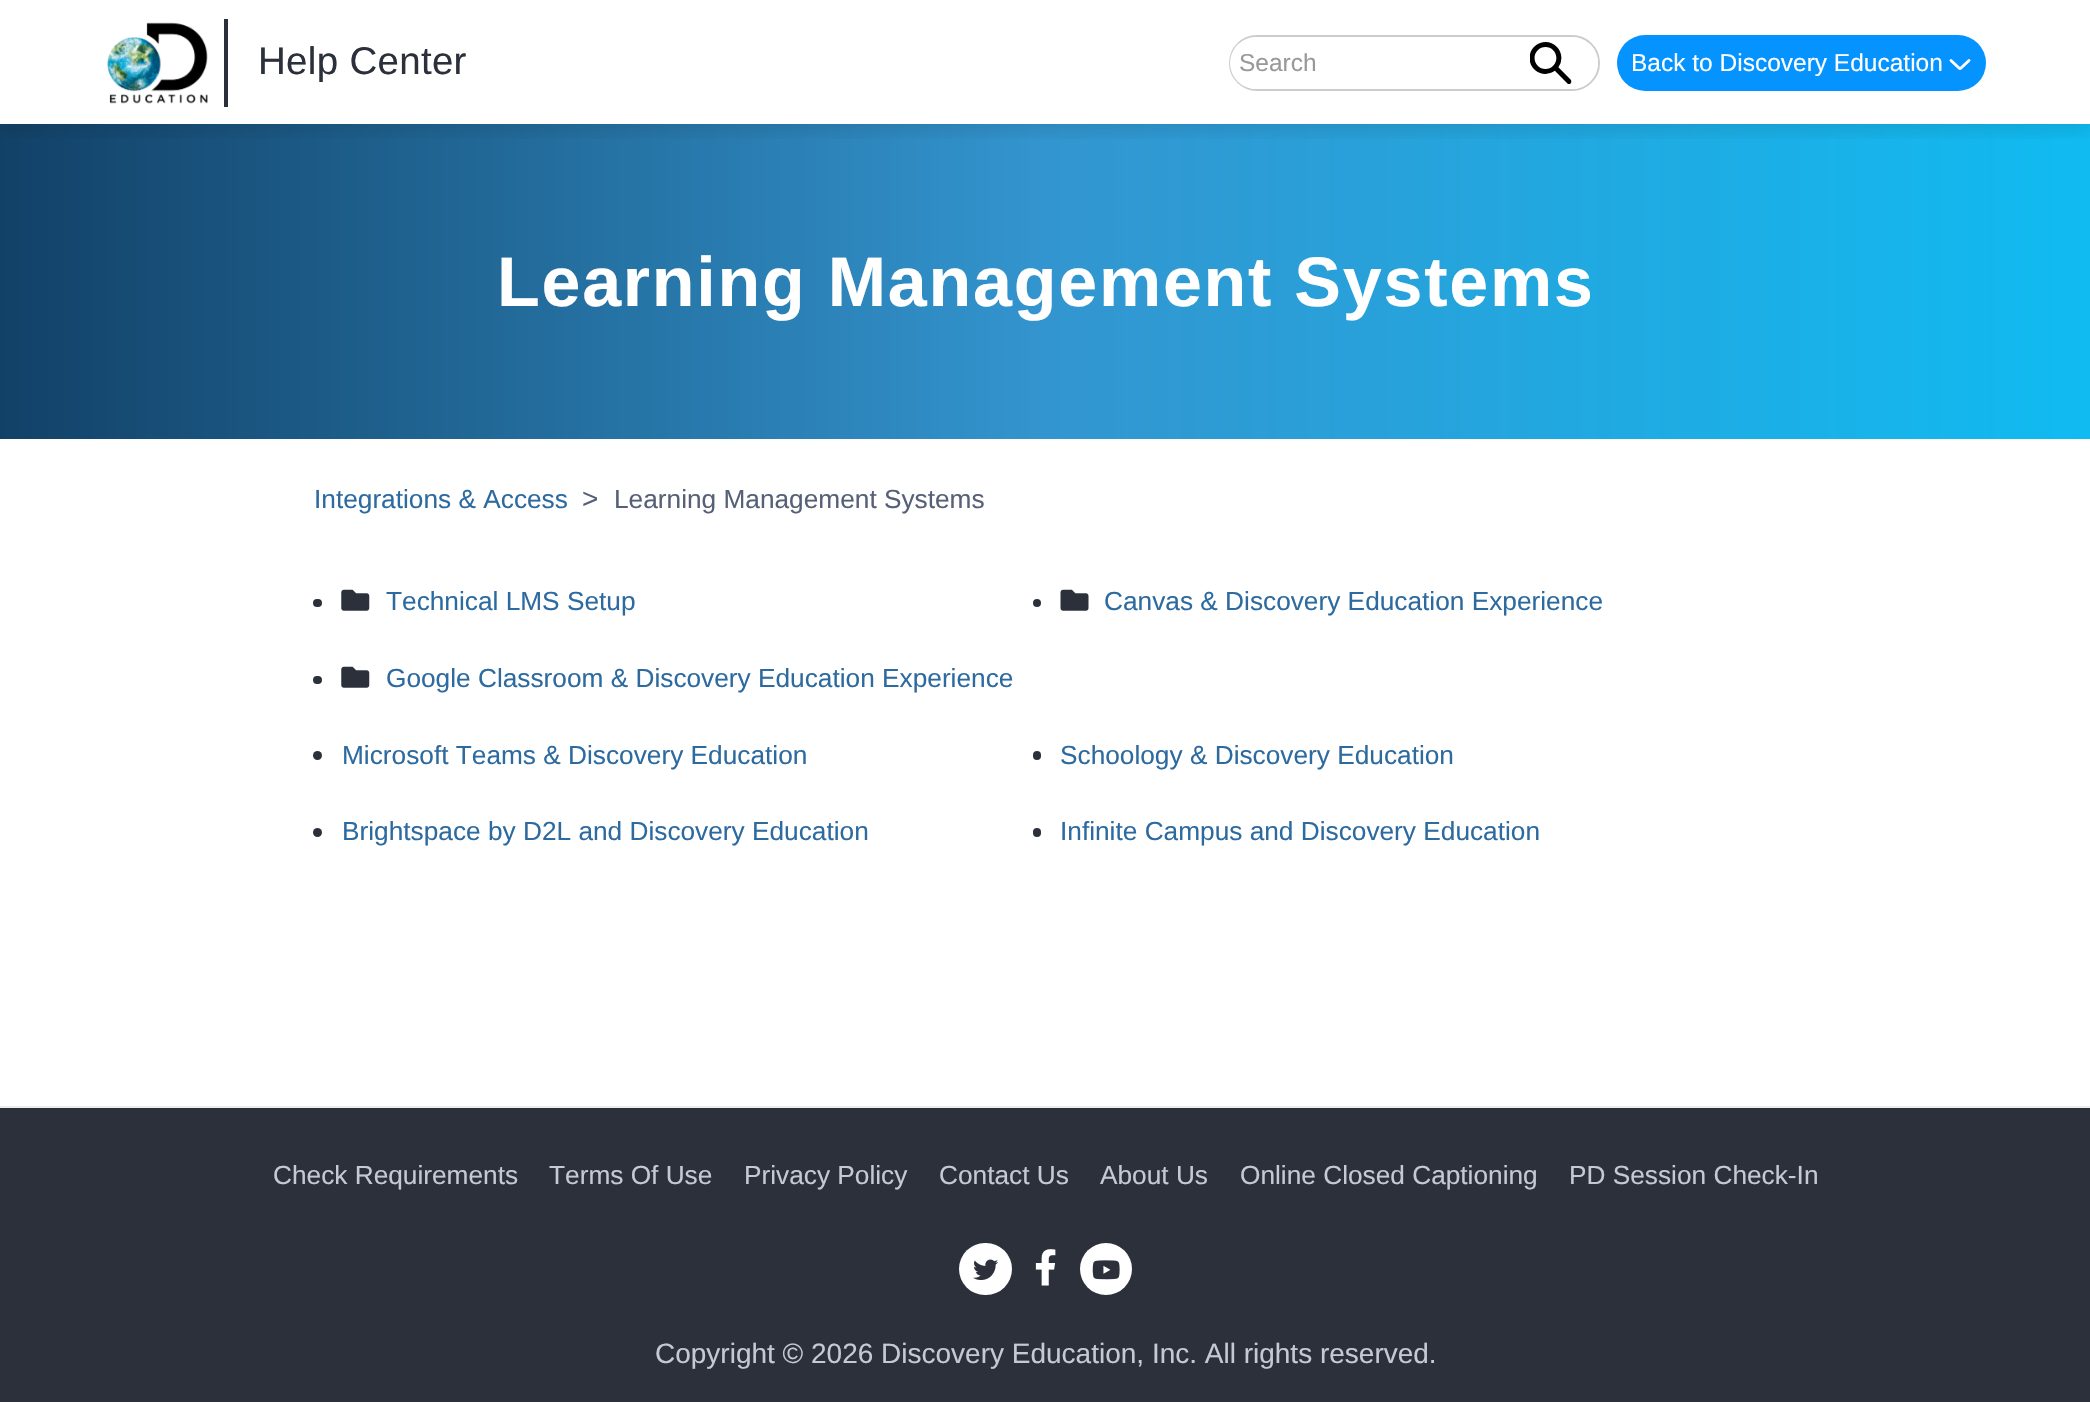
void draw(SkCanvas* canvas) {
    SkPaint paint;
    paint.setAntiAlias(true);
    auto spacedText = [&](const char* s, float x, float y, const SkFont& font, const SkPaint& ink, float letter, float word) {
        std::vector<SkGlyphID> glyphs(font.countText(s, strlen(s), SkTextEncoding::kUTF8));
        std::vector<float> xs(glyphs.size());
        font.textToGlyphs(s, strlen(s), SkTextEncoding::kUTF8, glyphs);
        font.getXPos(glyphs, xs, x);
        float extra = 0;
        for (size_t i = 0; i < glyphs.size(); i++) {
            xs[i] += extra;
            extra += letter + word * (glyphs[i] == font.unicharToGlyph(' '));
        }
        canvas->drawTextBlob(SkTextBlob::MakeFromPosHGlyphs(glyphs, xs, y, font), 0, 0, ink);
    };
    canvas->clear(0xFFFFFFFF);
    {
        const SkColor colors[] = {0xFF124167, 0xFF3395CF, 0xFF10BBF1};
        const float stops[] = {0, 0.5f, 1};
        const SkPoint ends[] = {{0, 282}, {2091, 282}};
        paint.setShader(SkGradientShader::MakeLinear(ends, colors, stops, 3, SkTileMode::kClamp));
        paint.setAlpha(255);
    }
    canvas->drawRect(SkRect::MakeXYWH(0, 124, 2090, 315), paint);
    canvas->save();
    canvas->clipRect(SkRect::MakeXYWH(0, 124, 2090, 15));
    paint.setShader(nullptr);
    paint.setColor(0x1A000000);
    paint.setMaskFilter(SkMaskFilter::MakeBlur(kNormal_SkBlurStyle, 9));
    canvas->drawRect(SkRect::MakeXYWH(0, 7, 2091, 124), paint);
    paint.setMaskFilter(nullptr);
    canvas->restore();
    canvas->drawImageRect(SkImages::DeferredFromEncodedData(SkData::MakeFromFileName("img1.png")), SkRect::MakeXYWH(107, 22, 101, 82), SkSamplingOptions());
    paint.setColor(0xFF2B303B);
    canvas->drawRect(SkRect::MakeXYWH(224, 19, 4, 88), paint);
    SkFont font1(fontMgr->matchFamilyStyle("Liberation Sans", SkFontStyle::Normal()), 38.5f);
    font1.setSubpixel(true);
    spacedText("Help Center", 258, 74, font1, paint, 0.3f, 0);
    paint.setStyle(SkPaint::kStroke_Style);
    paint.setStrokeWidth(2);
    paint.setColor(0xFFCCCCCC);
    canvas->drawRoundRect(SkRect::MakeXYWH(1230, 36, 369, 54), 27, 27, paint);
    paint.setStyle(SkPaint::kFill_Style);
    paint.setColor(0xFFFFFFFF);
    canvas->drawRoundRect(SkRect::MakeXYWH(1230, 37, 368, 52), 26, 26, paint);
    SkFont font2(fontMgr->matchFamilyStyle("Liberation Sans", SkFontStyle::Normal()), 24.5f);
    font2.setSubpixel(true);
    paint.setColor(0xFF999999);
    canvas->drawString("Search", 1239, 71, font2, paint);
    canvas->drawImageRect(SkImages::DeferredFromEncodedData(SkData::MakeFromFileName("img2.png")), SkRect::MakeXYWH(1530, 42, 42, 42), SkSamplingOptions());
    paint.setColor(0xFF0593FF);
    canvas->drawRoundRect(SkRect::MakeXYWH(1617, 35, 369, 56), 28, 28, paint);
    paint.setColor(0xFFFFFFFF);
    canvas->drawString("Back to Discovery Education", 1631, 71, font2, paint);
    paint.setStyle(SkPaint::kStroke_Style);
    paint.setStrokeWidth(2.9f);
    paint.setStrokeCap(SkPaint::kRound_Cap);
    canvas->drawPath(SkPathBuilder().moveTo(1951, 60.5f).lineTo(1959, 68).cubicTo(1959.5f, 68.5f, 1960.5f, 68.5f, 1961, 68).lineTo(1969, 60.5f).detach(), paint);
    SkFont font3(fontMgr->matchFamilyStyle("Liberation Sans", SkFontStyle::Bold()), 70);
    font3.setSubpixel(true);
    paint.setStyle(SkPaint::kFill_Style);
    spacedText("Learning Management Systems", 497, 306, font3, paint, 1.75f, 0);
    SkFont font4(fontMgr->matchFamilyStyle("Liberation Sans", SkFontStyle::Normal()), 26.25f);
    font4.setSubpixel(true);
    paint.setColor(0xFF2D6A9F);
    canvas->drawString("Integrations & Access", 314, 508, font4, paint);
    SkFont font5(fontMgr->matchFamilyStyle("Liberation Sans", SkFontStyle::Normal()), 28);
    font5.setSubpixel(true);
    paint.setColor(0xFF566076);
    canvas->drawString(">", 582, 508, font5, paint);
    canvas->drawString("Learning Management Systems", 614, 508, font4, paint);
    paint.setColor(0xFF2B303B);
    canvas->drawRoundRect(SkRect::MakeXYWH(313, 599, 9, 8), 4, 4, paint);
    canvas->drawImageRect(SkImages::DeferredFromEncodedData(SkData::MakeFromFileName("img3.png")), SkRect::MakeXYWH(341, 589, 29, 22), SkSamplingOptions());
    paint.setColor(0xFF2D6A9F);
    canvas->drawString("Technical LMS Setup", 386, 610, font4, paint);
    paint.setColor(0xFF2B303B);
    canvas->drawCircle(1037, 603, 4, paint);
    canvas->drawImageRect(SkImages::DeferredFromEncodedData(SkData::MakeFromFileName("img4.png")), SkRect::MakeXYWH(1060, 589, 29, 22), SkSamplingOptions());
    paint.setColor(0xFF2D6A9F);
    canvas->drawString("Canvas & Discovery Education Experience", 1104, 610, font4, paint);
    paint.setColor(0xFF2B303B);
    canvas->drawRoundRect(SkRect::MakeXYWH(313, 676, 9, 8), 4, 4, paint);
    canvas->drawImageRect(SkImages::DeferredFromEncodedData(SkData::MakeFromFileName("img3.png")), SkRect::MakeXYWH(341, 666, 29, 22), SkSamplingOptions());
    paint.setColor(0xFF2D6A9F);
    canvas->drawString("Google Classroom & Discovery Education Experience", 386, 687, font4, paint);
    paint.setColor(0xFF2B303B);
    canvas->drawCircle(317.5f, 755.5f, 4.5f, paint);
    paint.setColor(0xFF2D6A9F);
    canvas->drawString("Microsoft Teams & Discovery Education", 342, 764, font4, paint);
    paint.setColor(0xFF2B303B);
    canvas->drawRoundRect(SkRect::MakeXYWH(1033, 751, 8, 9), 4, 4, paint);
    paint.setColor(0xFF2D6A9F);
    canvas->drawString("Schoology & Discovery Education", 1060, 764, font4, paint);
    paint.setColor(0xFF2B303B);
    canvas->drawCircle(317.5f, 832.5f, 4.5f, paint);
    paint.setColor(0xFF2D6A9F);
    canvas->drawString("Brightspace by D2L and Discovery Education", 342, 840, font4, paint);
    paint.setColor(0xFF2B303B);
    canvas->drawRoundRect(SkRect::MakeXYWH(1033, 828, 8, 9), 4, 4, paint);
    paint.setColor(0xFF2D6A9F);
    canvas->drawString("Infinite Campus and Discovery Education", 1060, 840, font4, paint);
    paint.setColor(0xFFEDEDED);
    canvas->drawRect(SkRect::MakeXYWH(0, 1106, 2090, 2), paint);
    paint.setColor(0xFF2B303B);
    canvas->drawRect(SkRect::MakeXYWH(0, 1108, 2090, 294), paint);
    paint.setColor(0xFFC4C9D4);
    canvas->drawString("Check Requirements", 273, 1184, font4, paint);
    canvas->drawString("Terms Of Use", 549, 1184, font4, paint);
    canvas->drawString("Privacy Policy", 744, 1184, font4, paint);
    canvas->drawString("Contact Us", 939, 1184, font4, paint);
    canvas->drawString("About Us", 1100, 1184, font4, paint);
    canvas->drawString("Online Closed Captioning", 1240, 1184, font4, paint);
    canvas->drawString("PD Session Check-In", 1569, 1184, font4, paint);
    paint.setColor(0xFFFFFFFF);
    canvas->drawRoundRect(SkRect::MakeXYWH(959, 1243, 53, 52), 26, 26, paint);
    canvas->drawImageRect(SkImages::DeferredFromEncodedData(SkData::MakeFromFileName("img5.png")), SkRect::MakeXYWH(973, 1259, 25, 21), SkSamplingOptions());
    canvas->drawImageRect(SkImages::DeferredFromEncodedData(SkData::MakeFromFileName("img6.png")), SkRect::MakeXYWH(1035, 1249, 21, 37), SkSamplingOptions());
    canvas->drawCircle(1106, 1269, 26, paint);
    canvas->drawImageRect(SkImages::DeferredFromEncodedData(SkData::MakeFromFileName("img7.png")), SkRect::MakeXYWH(1092, 1260, 28, 20), SkSamplingOptions());
    paint.setColor(0xFFC4C9D4);
    canvas->drawString("Copyright © 2026 Discovery Education, Inc. All rights reserved.", 655, 1363, font5, paint);
}
